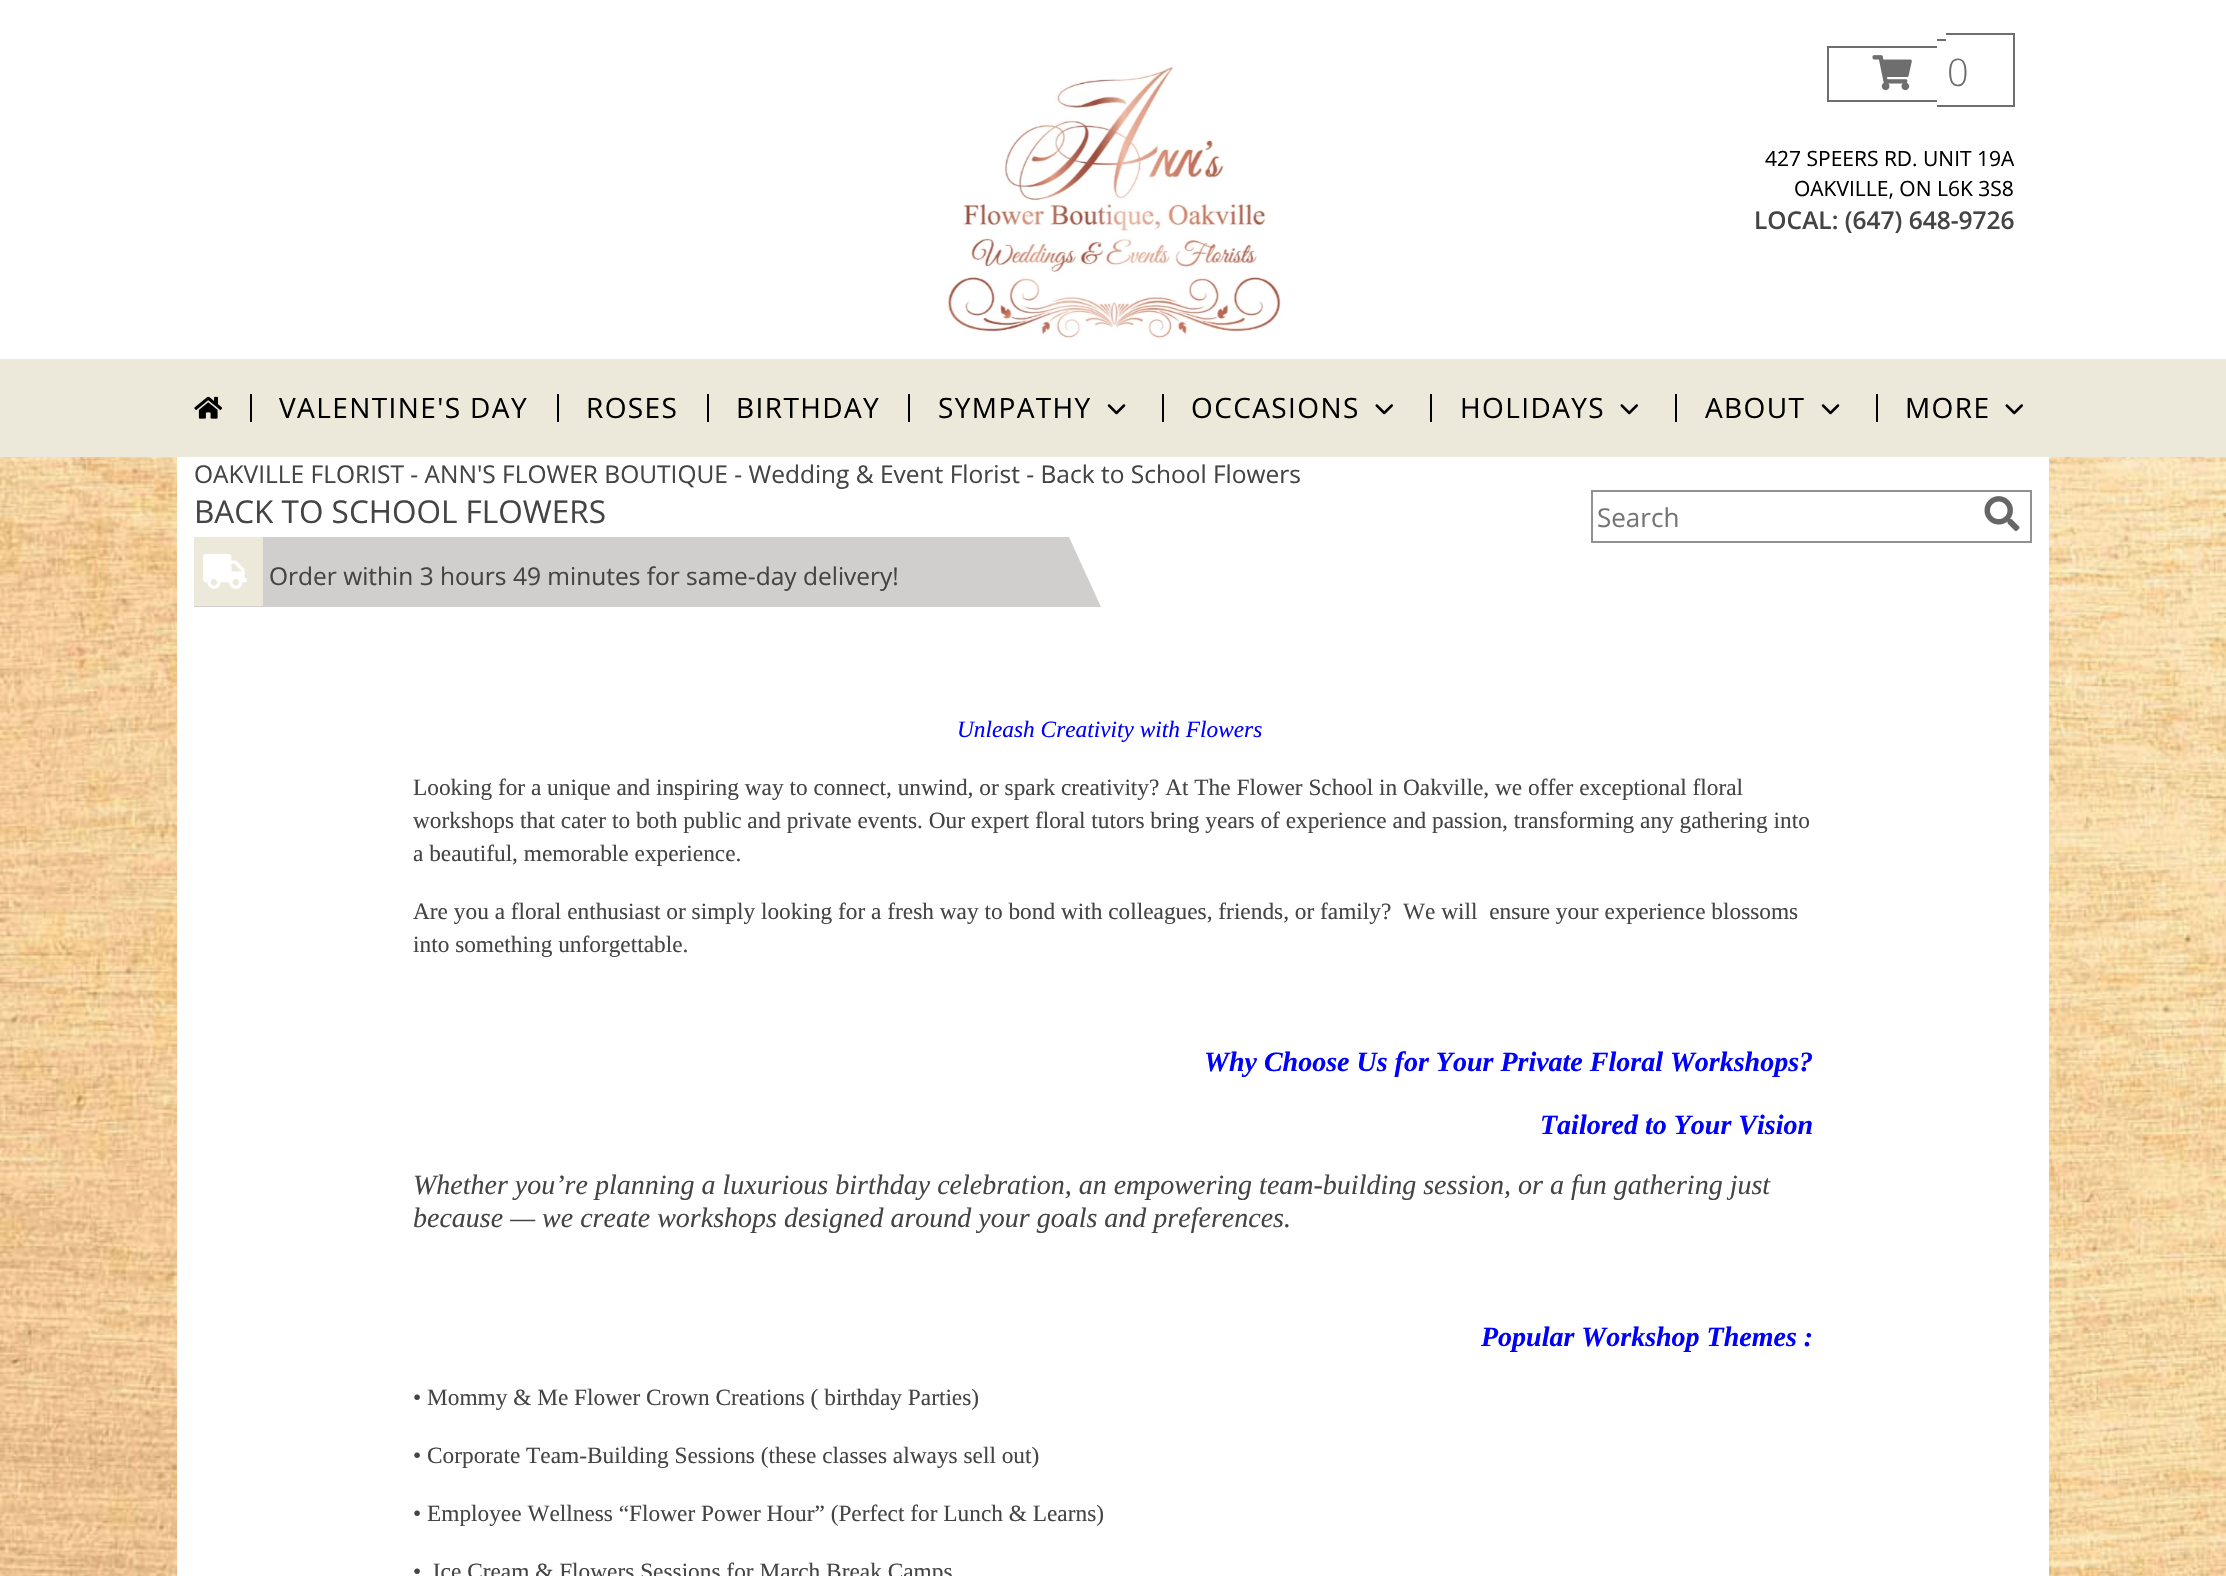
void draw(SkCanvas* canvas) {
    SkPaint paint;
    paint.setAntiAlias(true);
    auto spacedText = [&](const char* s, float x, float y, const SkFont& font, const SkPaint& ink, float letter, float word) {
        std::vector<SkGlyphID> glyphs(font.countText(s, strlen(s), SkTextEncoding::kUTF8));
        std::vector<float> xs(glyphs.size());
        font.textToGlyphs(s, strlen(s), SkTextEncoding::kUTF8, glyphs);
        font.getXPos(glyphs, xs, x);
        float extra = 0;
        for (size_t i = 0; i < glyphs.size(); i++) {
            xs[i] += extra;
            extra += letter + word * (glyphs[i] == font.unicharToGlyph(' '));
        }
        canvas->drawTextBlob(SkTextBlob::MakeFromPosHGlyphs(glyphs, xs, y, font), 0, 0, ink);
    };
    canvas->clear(0xFFFFFFFF);
    canvas->drawImageRect(SkImages::DeferredFromEncodedData(SkData::MakeFromFileName("img1.png")), SkRect::MakeXYWH(0, 457, 2226, 1119), SkSamplingOptions());
    paint.setColor(0xFFFFFFFF);
    canvas->drawRect(SkRect::MakeXYWH(177, 457, 1872, 1119), paint);
    canvas->drawImageRect(SkImages::DeferredFromEncodedData(SkData::MakeFromFileName("img2.png")), SkRect::MakeXYWH(943, 66, 338, 273), SkSamplingOptions());
    paint.setColor(0xFF6E6E6E);
    canvas->drawRect(SkRect::MakeXYWH(1827, 46, 110, 2), paint);
    canvas->drawRect(SkRect::MakeXYWH(1827, 100, 110, 2), paint);
    canvas->drawRect(SkRect::MakeXYWH(1827, 46, 2, 56), paint);
    canvas->drawRect(SkRect::MakeXYWH(1937, 39, 9, 2), paint);
    canvas->drawRect(SkRect::MakeXYWH(1937, 105, 9, 2), paint);
    canvas->drawRect(SkRect::MakeXYWH(1946, 33, 68, 2), paint);
    canvas->drawRect(SkRect::MakeXYWH(2013, 33, 2, 74), paint);
    canvas->drawRect(SkRect::MakeXYWH(1946, 105, 68, 2), paint);
    canvas->drawImageRect(SkImages::DeferredFromEncodedData(SkData::MakeFromFileName("img3.png")), SkRect::MakeXYWH(1872, 55, 40, 36), SkSamplingOptions());
    SkFont font1(fontMgr->matchFamilyStyle("Open Sans", SkFontStyle(300, SkFontStyle::kNormal_Width, SkFontStyle::kUpright_Slant)), 38);
    font1.setSubpixel(true);
    canvas->drawString("0", 1947, 86, font1, paint);
    SkFont font2(fontMgr->matchFamilyStyle("Open Sans", SkFontStyle::Normal()), 21);
    font2.setSubpixel(true);
    paint.setColor(0xFF000000);
    canvas->drawString("427 SPEERS RD. UNIT 19A", 1765, 166, font2, paint);
    canvas->drawString("OAKVILLE, ON L6K 3S8", 1794, 196, font2, paint);
    SkFont font3(fontMgr->matchFamilyStyle("Open Sans", SkFontStyle(600, SkFontStyle::kNormal_Width, SkFontStyle::kUpright_Slant)), 24.5f);
    font3.setSubpixel(true);
    paint.setColor(0xFF444444);
    canvas->drawString("LOCAL: (647) 648-9726", 1754, 229, font3, paint);
    paint.setColor(0xFFECE8DA);
    canvas->drawRect(SkRect::MakeXYWH(0, 359, 2226, 98), paint);
    canvas->drawImageRect(SkImages::DeferredFromEncodedData(SkData::MakeFromFileName("img4.png")), SkRect::MakeXYWH(194, 396, 28, 23), SkSamplingOptions());
    paint.setColor(0xFF000000);
    canvas->drawRect(SkRect::MakeXYWH(250, 394, 2, 28), paint);
    SkFont font4(fontMgr->matchFamilyStyle("Open Sans", SkFontStyle::Normal()), 28);
    font4.setSubpixel(true);
    spacedText("VALENTINE'S DAY", 279, 418, font4, paint, 1.4f, 0);
    canvas->drawRect(SkRect::MakeXYWH(557, 394, 2, 28), paint);
    spacedText("ROSES", 586, 418, font4, paint, 1.4f, 0);
    canvas->drawRect(SkRect::MakeXYWH(707, 394, 2, 28), paint);
    spacedText("BIRTHDAY", 736, 418, font4, paint, 1.4f, 0);
    canvas->drawRect(SkRect::MakeXYWH(908, 394, 2, 28), paint);
    spacedText("SYMPATHY", 938, 418, font4, paint, 1.4f, 0);
    canvas->drawImageRect(SkImages::DeferredFromEncodedData(SkData::MakeFromFileName("img5.png")), SkRect::MakeXYWH(1107, 404, 19, 11), SkSamplingOptions());
    canvas->drawRect(SkRect::MakeXYWH(1162, 394, 2, 28), paint);
    spacedText("OCCASIONS", 1191, 418, font4, paint, 1.4f, 0);
    canvas->drawImageRect(SkImages::DeferredFromEncodedData(SkData::MakeFromFileName("img6.png")), SkRect::MakeXYWH(1375, 404, 18, 11), SkSamplingOptions());
    canvas->drawRect(SkRect::MakeXYWH(1430, 394, 2, 28), paint);
    spacedText("HOLIDAYS", 1460, 418, font4, paint, 1.4f, 0);
    canvas->drawImageRect(SkImages::DeferredFromEncodedData(SkData::MakeFromFileName("img6.png")), SkRect::MakeXYWH(1620, 404, 18, 11), SkSamplingOptions());
    canvas->drawRect(SkRect::MakeXYWH(1675, 394, 2, 28), paint);
    spacedText("ABOUT", 1705, 418, font4, paint, 1.4f, 0);
    canvas->drawImageRect(SkImages::DeferredFromEncodedData(SkData::MakeFromFileName("img5.png")), SkRect::MakeXYWH(1821, 404, 19, 11), SkSamplingOptions());
    canvas->drawRect(SkRect::MakeXYWH(1876, 394, 2, 28), paint);
    spacedText("MORE", 1905, 418, font4, paint, 1.4f, 0);
    canvas->drawImageRect(SkImages::DeferredFromEncodedData(SkData::MakeFromFileName("img6.png")), SkRect::MakeXYWH(2005, 404, 18, 11), SkSamplingOptions());
    SkFont font5(fontMgr->matchFamilyStyle("Open Sans", SkFontStyle::Normal()), 24.5f);
    font5.setSubpixel(true);
    paint.setColor(0xFF444444);
    canvas->drawString("OAKVILLE FLORIST - ANN'S FLOWER BOUTIQUE - Wedding & Event Florist - Back to School Flowers", 194, 483, font5, paint);
    SkFont font6(fontMgr->matchFamilyStyle("Open Sans", SkFontStyle::Normal()), 31.5f);
    font6.setSubpixel(true);
    canvas->drawString("BACK TO SCHOOL FLOWERS", 194, 523, font6, paint);
    paint.setStyle(SkPaint::kStroke_Style);
    paint.setStrokeWidth(2);
    paint.setColor(0xFF919191);
    canvas->drawRect(SkRect::MakeXYWH(1592, 491, 439, 51), paint);
    SkFont font7(fontMgr->matchFamilyStyle("Open Sans", SkFontStyle::Normal()), 26);
    font7.setSubpixel(true);
    paint.setStyle(SkPaint::kFill_Style);
    paint.setColor(0xFF757575);
    canvas->drawString("Search", 1597, 527, font7, paint);
    canvas->drawImageRect(SkImages::DeferredFromEncodedData(SkData::MakeFromFileName("img7.png")), SkRect::MakeXYWH(1984, 496, 36, 36), SkSamplingOptions());
    paint.setColor(0xFFD0CFCD);
    canvas->drawPath(SkPathBuilder().moveTo(1101, 607).lineTo(194, 607).lineTo(194, 537).lineTo(1069, 537).close().detach(), paint);
    paint.setColor(0xFFECE8DA);
    canvas->drawRect(SkRect::MakeXYWH(194, 537, 69, 69), paint);
    canvas->drawImageRect(SkImages::DeferredFromEncodedData(SkData::MakeFromFileName("img8.png")), SkRect::MakeXYWH(203, 553, 44, 36), SkSamplingOptions());
    paint.setColor(0xFF444444);
    canvas->drawString("Order within 3 hours 49 minutes for same-day delivery!", 269, 585, font5, paint);
    SkFont font8(fontMgr->matchFamilyStyle("Liberation Serif", SkFontStyle::Italic()), 23.33f);
    font8.setSubpixel(true);
    paint.setColor(0xFF0000FF);
    canvas->drawString("Unleash Creativity with Flowers", 957, 737, font8, paint);
    SkFont font9(fontMgr->matchFamilyStyle("Liberation Serif", SkFontStyle::Normal()), 23.33f);
    font9.setSubpixel(true);
    paint.setColor(0xFF444444);
    canvas->drawString("Looking for a unique and inspiring way to connect, unwind, or spark creativity? At The Flower School in Oakville, we offer exceptional floral", 413, 795, font9, paint);
    canvas->drawString("workshops that cater to both public and private events. Our expert floral tutors bring years of experience and passion, transforming any gathering into", 413, 828, font9, paint);
    canvas->drawString("a beautiful, memorable experience.", 413, 861, font9, paint);
    canvas->drawString("Are you a floral enthusiast or simply looking for a fresh way to bond with colleagues, friends, or family?  We will  ensure your experience blossoms", 413, 919, font9, paint);
    canvas->drawString("into something unforgettable.", 413, 952, font9, paint);
    SkFont font10(fontMgr->matchFamilyStyle("Liberation Serif", SkFontStyle::BoldItalic()), 28);
    font10.setSubpixel(true);
    paint.setColor(0xFF0000FF);
    canvas->drawString("Why Choose Us for Your Private Floral Workshops?", 1204, 1071, font10, paint);
    canvas->drawString("Tailored to Your Vision", 1540, 1134, font10, paint);
    SkFont font11(fontMgr->matchFamilyStyle("Liberation Serif", SkFontStyle::Italic()), 28);
    font11.setSubpixel(true);
    paint.setColor(0xFF444444);
    canvas->drawString("Whether you’re planning a luxurious birthday celebration, an empowering team-building session, or a fun gathering just", 413, 1194, font11, paint);
    canvas->drawString("because — we create workshops designed around your goals and preferences.", 413, 1227, font11, paint);
    paint.setColor(0xFF0000FF);
    canvas->drawString("Popular Workshop Themes :", 1481, 1346, font10, paint);
    paint.setColor(0xFF444444);
    canvas->drawString("• Mommy & Me Flower Crown Creations ( birthday Parties)", 413, 1405, font9, paint);
    canvas->drawString("• Corporate Team-Building Sessions (these classes always sell out)", 413, 1463, font9, paint);
    canvas->drawString("• Employee Wellness “Flower Power Hour” (Perfect for Lunch & Learns)", 413, 1521, font9, paint);
    canvas->drawString("•  Ice Cream & Flowers Sessions for March Break Camps", 413, 1579, font9, paint);
}
